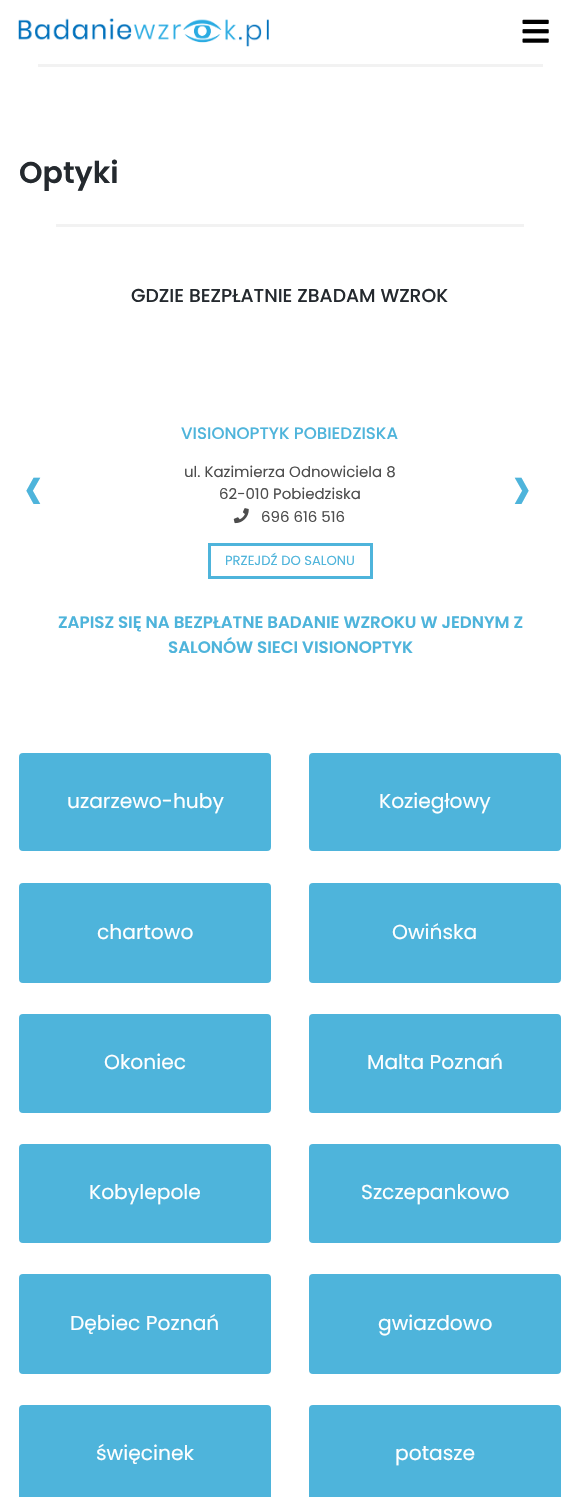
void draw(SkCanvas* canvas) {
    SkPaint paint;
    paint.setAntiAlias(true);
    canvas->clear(0xFFFFFFFF);
    canvas->drawImageRect(SkImages::DeferredFromEncodedData(SkData::MakeFromFileName("img1.png")), SkRect::MakeXYWH(18, 18, 251, 29), SkSamplingOptions());
    canvas->drawImageRect(SkImages::DeferredFromEncodedData(SkData::MakeFromFileName("img2.png")), SkRect::MakeXYWH(522, 19, 27, 24), SkSamplingOptions());
    paint.setColor(0xFFF2F2F2);
    canvas->drawRect(SkRect::MakeXYWH(38, 64, 505, 3), paint);
    SkFont font1(fontMgr->matchFamilyStyle("Poppins", SkFontStyle(600, SkFontStyle::kNormal_Width, SkFontStyle::kUpright_Slant)), 30);
    font1.setSubpixel(true);
    paint.setColor(0xFF24292E);
    canvas->drawString("Optyki", 19, 183, font1, paint);
    paint.setColor(0xFFF2F2F2);
    canvas->drawRect(SkRect::MakeXYWH(56, 224, 468, 3), paint);
    SkFont font2(fontMgr->matchFamilyStyle("Poppins", SkFontStyle(500, SkFontStyle::kNormal_Width, SkFontStyle::kUpright_Slant)), 18.75f);
    font2.setSubpixel(true);
    paint.setColor(0xFF24292E);
    canvas->drawString("GDZIE BEZPŁATNIE ZBADAM WZROK", 131, 302, font2, paint);
    SkFont font3(fontMgr->matchFamilyStyle("Poppins", SkFontStyle(500, SkFontStyle::kNormal_Width, SkFontStyle::kUpright_Slant)), 16.65f);
    font3.setSubpixel(true);
    paint.setColor(0xFF4EB4DB);
    canvas->drawString("VISIONOPTYK POBIEDZISKA", 181, 439, font3, paint);
    SkFont font4(fontMgr->matchFamilyStyle("Poppins", SkFontStyle::Normal()), 15);
    font4.setSubpixel(true);
    paint.setColor(0xFF4D4D4D);
    canvas->drawString("ul. Kazimierza Odnowiciela 8", 184, 477, font4, paint);
    canvas->drawString("62-010 Pobiedziska", 219, 499, font4, paint);
    canvas->drawImageRect(SkImages::DeferredFromEncodedData(SkData::MakeFromFileName("img3.png")), SkRect::MakeXYWH(233, 508, 16, 16), SkSamplingOptions());
    canvas->drawString("696 616 516", 261, 522, font4, paint);
    paint.setStyle(SkPaint::kStroke_Style);
    paint.setStrokeWidth(3);
    paint.setColor(0xFF4EB4DB);
    canvas->drawRect(SkRect::MakeXYWH(209.5f, 544.5f, 162, 33), paint);
    SkFont font5(fontMgr->matchFamilyStyle("Poppins", SkFontStyle::Normal()), 13.1f);
    font5.setSubpixel(true);
    paint.setStyle(SkPaint::kFill_Style);
    canvas->drawString("PRZEJDŹ DO SALONU", 225, 565, font5, paint);
    SkFont font6(fontMgr->matchFamilyStyle("Poppins", SkFontStyle::Normal()), 75);
    font6.setSubpixel(true);
    canvas->drawString("‹", 23, 513, font6, paint);
    canvas->drawString("›", 511, 513, font6, paint);
    SkFont font7(fontMgr->matchFamilyStyle("Poppins", SkFontStyle(600, SkFontStyle::kNormal_Width, SkFontStyle::kUpright_Slant)), 16.65f);
    font7.setSubpixel(true);
    canvas->drawString("ZAPISZ SIĘ NA BEZPŁATNE BADANIE WZROKU W JEDNYM Z", 58, 628, font7, paint);
    canvas->drawString("SALONÓW SIECI VISIONOPTYK", 168, 653, font7, paint);
    canvas->drawRoundRect(SkRect::MakeXYWH(20.5f, 754.5f, 249, 95), 2.5f, 2.5f, paint);
    paint.setStyle(SkPaint::kStroke_Style);
    canvas->drawRoundRect(SkRect::MakeXYWH(20.5f, 754.5f, 249, 95), 2.5f, 2.5f, paint);
    SkFont font8(fontMgr->matchFamilyStyle("Poppins", SkFontStyle::Normal()), 20.25f);
    font8.setSubpixel(true);
    paint.setStyle(SkPaint::kFill_Style);
    paint.setColor(0xFFFFFFFF);
    canvas->drawString("uzarzewo-huby", 67, 808, font8, paint);
    paint.setColor(0xFF4EB4DB);
    canvas->drawRoundRect(SkRect::MakeXYWH(310.5f, 754.5f, 249, 95), 2.5f, 2.5f, paint);
    paint.setStyle(SkPaint::kStroke_Style);
    canvas->drawRoundRect(SkRect::MakeXYWH(310.5f, 754.5f, 249, 95), 2.5f, 2.5f, paint);
    paint.setStyle(SkPaint::kFill_Style);
    paint.setColor(0xFFFFFFFF);
    canvas->drawString("Koziegłowy", 379, 808, font8, paint);
    paint.setColor(0xFF4EB4DB);
    canvas->drawRoundRect(SkRect::MakeXYWH(20.5f, 884.5f, 249, 97), 2.5f, 2.5f, paint);
    paint.setStyle(SkPaint::kStroke_Style);
    canvas->drawRoundRect(SkRect::MakeXYWH(20.5f, 884.5f, 249, 97), 2.5f, 2.5f, paint);
    paint.setStyle(SkPaint::kFill_Style);
    paint.setColor(0xFFFFFFFF);
    canvas->drawString("chartowo", 97, 939, font8, paint);
    paint.setColor(0xFF4EB4DB);
    canvas->drawRoundRect(SkRect::MakeXYWH(310.5f, 884.5f, 249, 97), 2.5f, 2.5f, paint);
    paint.setStyle(SkPaint::kStroke_Style);
    canvas->drawRoundRect(SkRect::MakeXYWH(310.5f, 884.5f, 249, 97), 2.5f, 2.5f, paint);
    paint.setStyle(SkPaint::kFill_Style);
    paint.setColor(0xFFFFFFFF);
    canvas->drawString("Owińska", 392, 939, font8, paint);
    paint.setColor(0xFF4EB4DB);
    canvas->drawRoundRect(SkRect::MakeXYWH(20.5f, 1015.5f, 249, 96), 2.5f, 2.5f, paint);
    paint.setStyle(SkPaint::kStroke_Style);
    canvas->drawRoundRect(SkRect::MakeXYWH(20.5f, 1015.5f, 249, 96), 2.5f, 2.5f, paint);
    paint.setStyle(SkPaint::kFill_Style);
    paint.setColor(0xFFFFFFFF);
    canvas->drawString("Okoniec", 104, 1069, font8, paint);
    paint.setColor(0xFF4EB4DB);
    canvas->drawRoundRect(SkRect::MakeXYWH(310.5f, 1015.5f, 249, 96), 2.5f, 2.5f, paint);
    paint.setStyle(SkPaint::kStroke_Style);
    canvas->drawRoundRect(SkRect::MakeXYWH(310.5f, 1015.5f, 249, 96), 2.5f, 2.5f, paint);
    paint.setStyle(SkPaint::kFill_Style);
    paint.setColor(0xFFFFFFFF);
    canvas->drawString("Malta Poznań", 367, 1069, font8, paint);
    paint.setColor(0xFF4EB4DB);
    canvas->drawRoundRect(SkRect::MakeXYWH(20.5f, 1145.5f, 249, 96), 2.5f, 2.5f, paint);
    paint.setStyle(SkPaint::kStroke_Style);
    canvas->drawRoundRect(SkRect::MakeXYWH(20.5f, 1145.5f, 249, 96), 2.5f, 2.5f, paint);
    paint.setStyle(SkPaint::kFill_Style);
    paint.setColor(0xFFFFFFFF);
    canvas->drawString("Kobylepole", 89, 1199, font8, paint);
    paint.setColor(0xFF4EB4DB);
    canvas->drawRoundRect(SkRect::MakeXYWH(310.5f, 1145.5f, 249, 96), 2.5f, 2.5f, paint);
    paint.setStyle(SkPaint::kStroke_Style);
    canvas->drawRoundRect(SkRect::MakeXYWH(310.5f, 1145.5f, 249, 96), 2.5f, 2.5f, paint);
    paint.setStyle(SkPaint::kFill_Style);
    paint.setColor(0xFFFFFFFF);
    canvas->drawString("Szczepankowo", 361, 1199, font8, paint);
    paint.setColor(0xFF4EB4DB);
    canvas->drawRoundRect(SkRect::MakeXYWH(20.5f, 1275.5f, 249, 97), 2.5f, 2.5f, paint);
    paint.setStyle(SkPaint::kStroke_Style);
    canvas->drawRoundRect(SkRect::MakeXYWH(20.5f, 1275.5f, 249, 97), 2.5f, 2.5f, paint);
    paint.setStyle(SkPaint::kFill_Style);
    paint.setColor(0xFFFFFFFF);
    canvas->drawString("Dębiec Poznań", 70, 1330, font8, paint);
    paint.setColor(0xFF4EB4DB);
    canvas->drawRoundRect(SkRect::MakeXYWH(310.5f, 1275.5f, 249, 97), 2.5f, 2.5f, paint);
    paint.setStyle(SkPaint::kStroke_Style);
    canvas->drawRoundRect(SkRect::MakeXYWH(310.5f, 1275.5f, 249, 97), 2.5f, 2.5f, paint);
    paint.setStyle(SkPaint::kFill_Style);
    paint.setColor(0xFFFFFFFF);
    canvas->drawString("gwiazdowo", 378, 1330, font8, paint);
    paint.setColor(0xFF4EB4DB);
    canvas->drawRoundRect(SkRect::MakeXYWH(20.5f, 1406.5f, 249, 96), 2.5f, 2.5f, paint);
    paint.setStyle(SkPaint::kStroke_Style);
    canvas->drawRoundRect(SkRect::MakeXYWH(20.5f, 1406.5f, 249, 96), 2.5f, 2.5f, paint);
    paint.setStyle(SkPaint::kFill_Style);
    paint.setColor(0xFFFFFFFF);
    canvas->drawString("święcinek", 96, 1460, font8, paint);
    paint.setColor(0xFF4EB4DB);
    canvas->drawRoundRect(SkRect::MakeXYWH(310.5f, 1406.5f, 249, 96), 2.5f, 2.5f, paint);
    paint.setStyle(SkPaint::kStroke_Style);
    canvas->drawRoundRect(SkRect::MakeXYWH(310.5f, 1406.5f, 249, 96), 2.5f, 2.5f, paint);
    paint.setStyle(SkPaint::kFill_Style);
    paint.setColor(0xFFFFFFFF);
    canvas->drawString("potasze", 395, 1460, font8, paint);
}
